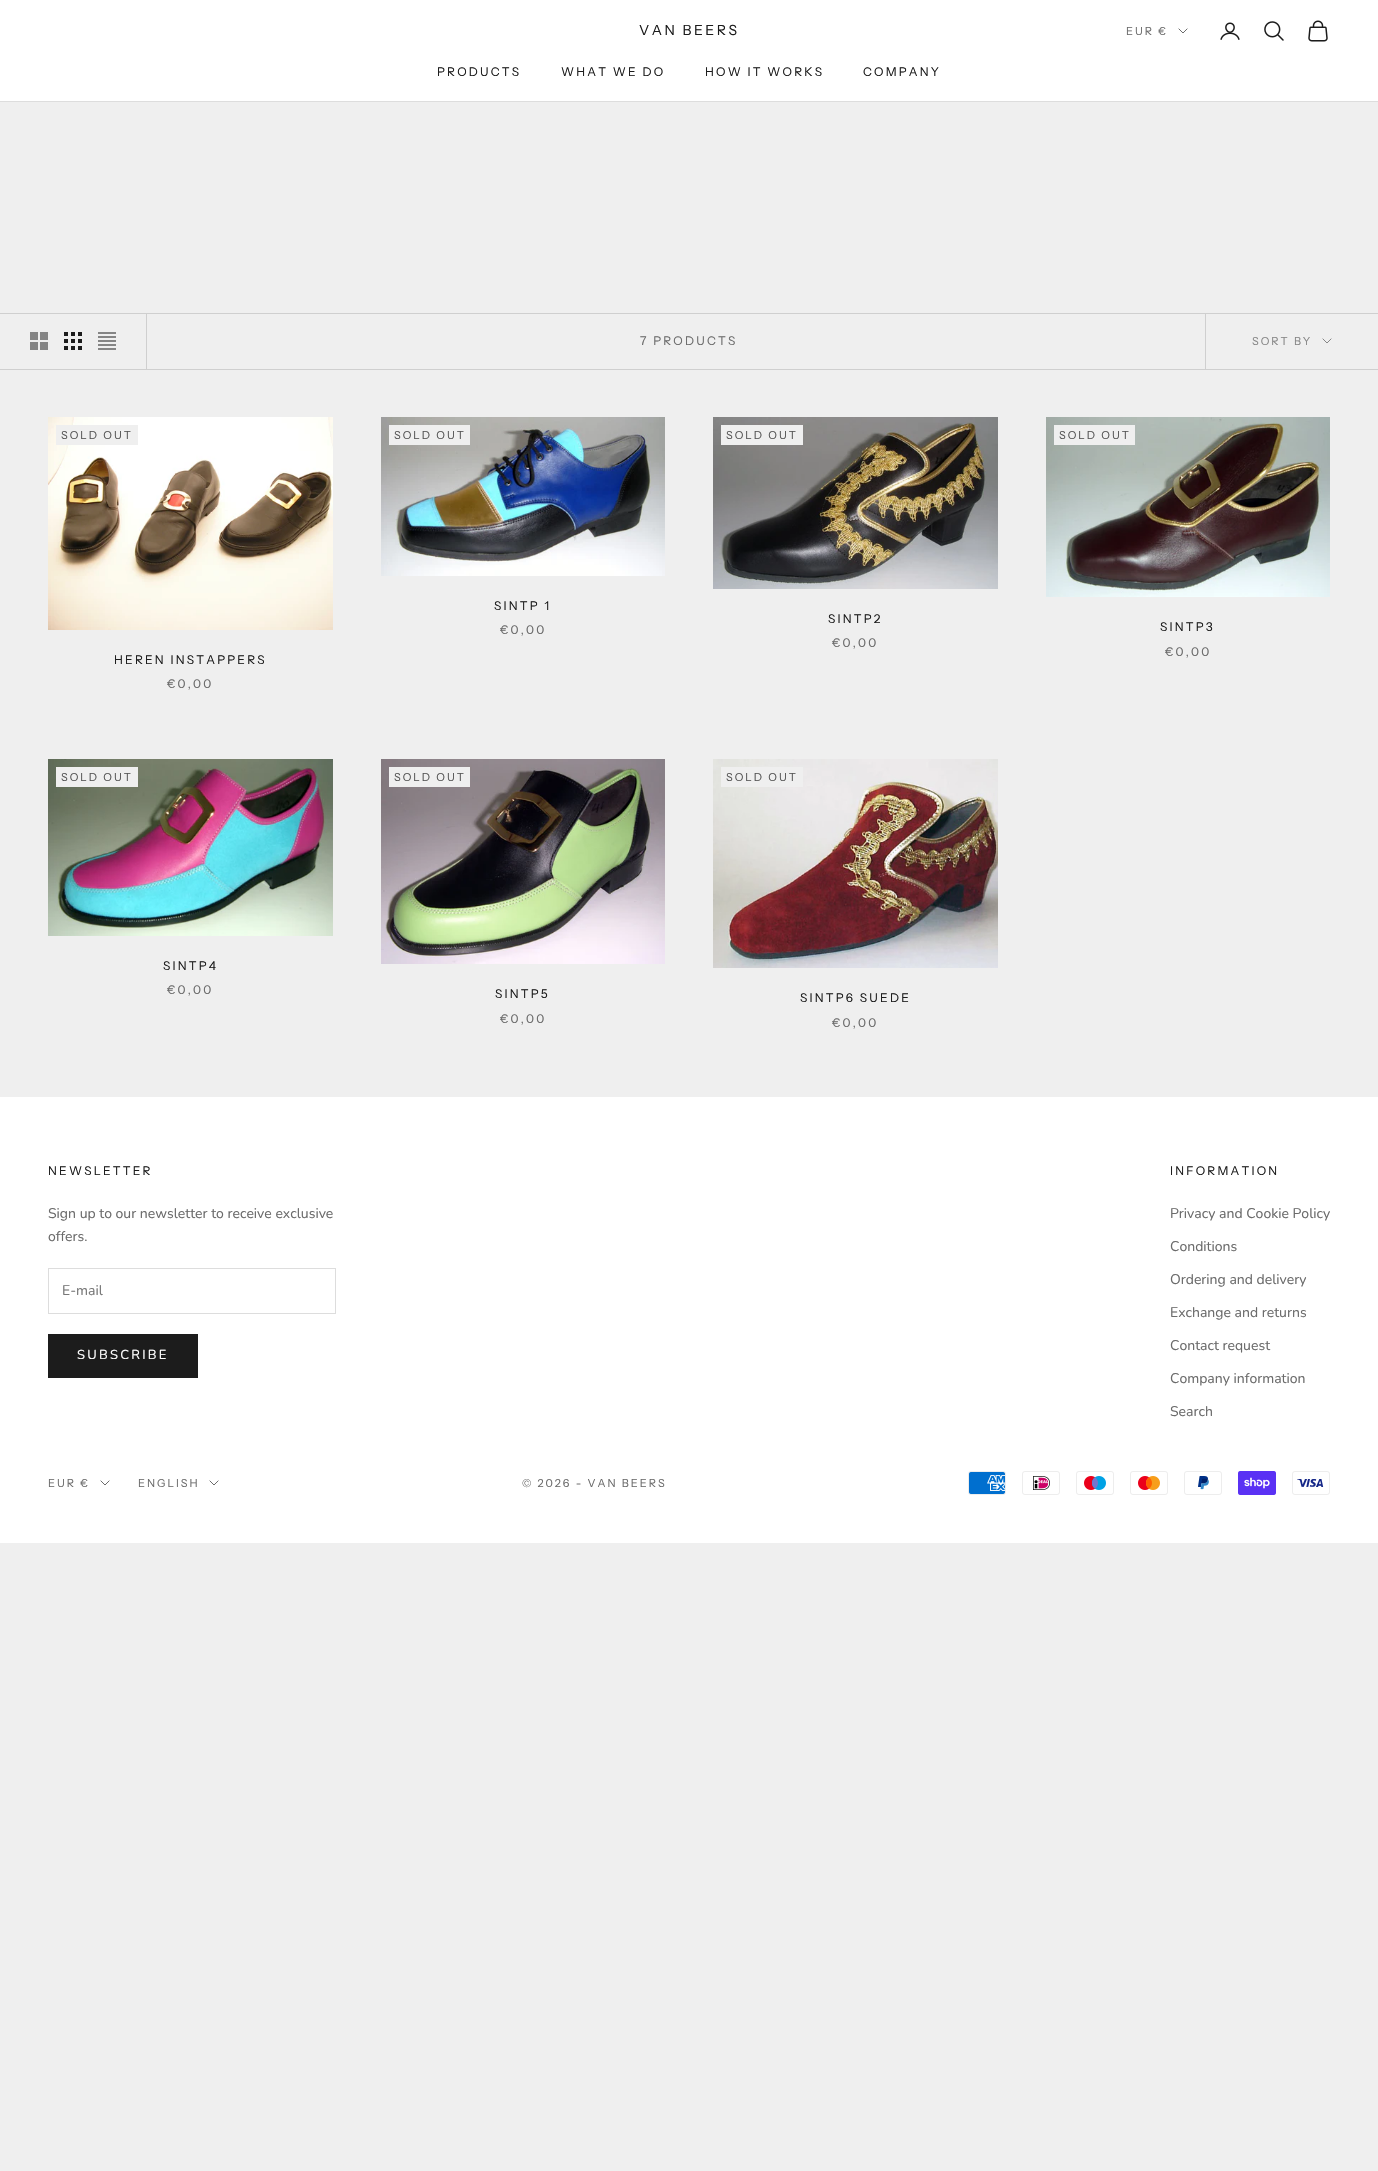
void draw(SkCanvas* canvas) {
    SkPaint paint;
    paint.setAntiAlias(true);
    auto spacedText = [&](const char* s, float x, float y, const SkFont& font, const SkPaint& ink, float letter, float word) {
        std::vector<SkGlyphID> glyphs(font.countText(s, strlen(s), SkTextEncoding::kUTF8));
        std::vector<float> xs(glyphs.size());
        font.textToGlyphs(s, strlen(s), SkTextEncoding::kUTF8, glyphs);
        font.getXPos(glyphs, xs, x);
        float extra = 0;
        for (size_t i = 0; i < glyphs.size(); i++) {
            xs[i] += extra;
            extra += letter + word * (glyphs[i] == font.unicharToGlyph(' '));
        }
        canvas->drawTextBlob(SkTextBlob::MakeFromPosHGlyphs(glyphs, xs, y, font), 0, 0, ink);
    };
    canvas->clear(0xFFEFEFEF);
    paint.setColor(0xFFFFFFFF);
    canvas->drawRect(SkRect::MakeXYWH(0, 0, 1378, 101), paint);
    paint.setColor(0xFFDDDDDD);
    canvas->drawRect(SkRect::MakeXYWH(0, 101, 1378, 1), paint);
    SkFont font1(fontMgr->matchFamilyStyle("Instrument Sans", SkFontStyle::Normal()), 14);
    font1.setSubpixel(true);
    paint.setColor(0xFF1C1C1C);
    spacedText("VAN BEERS", 639, 35, font1, paint, 2.5f, 0);
    SkFont font2(fontMgr->matchFamilyStyle("Instrument Sans", SkFontStyle::Normal()), 11);
    font2.setSubpixel(true);
    paint.setColor(0xFF6B6B6B);
    spacedText("EUR €", 1126, 35, font2, paint, 2, 0);
    paint.setStyle(SkPaint::kStroke_Style);
    paint.setStrokeWidth(1);
    paint.setStrokeCap(SkPaint::kSquare_Cap);
    canvas->drawPath(SkPathBuilder().moveTo(1179, 29).lineTo(1183, 33).lineTo(1187, 29).detach(), paint);
    canvas->drawImageRect(SkImages::DeferredFromEncodedData(SkData::MakeFromFileName("img1.png")), SkRect::MakeXYWH(1220, 22, 20, 18), SkSamplingOptions());
    canvas->drawImageRect(SkImages::DeferredFromEncodedData(SkData::MakeFromFileName("img2.png")), SkRect::MakeXYWH(1264, 21, 20, 20), SkSamplingOptions());
    canvas->drawImageRect(SkImages::DeferredFromEncodedData(SkData::MakeFromFileName("img3.png")), SkRect::MakeXYWH(1308, 20, 20, 22), SkSamplingOptions());
    SkFont font3(fontMgr->matchFamilyStyle("Instrument Sans", SkFontStyle::Normal()), 12);
    font3.setSubpixel(true);
    paint.setStyle(SkPaint::kFill_Style);
    paint.setColor(0xFF1C1C1C);
    spacedText("PRODUCTS", 437, 76, font3, paint, 2.2f, 0);
    spacedText("WHAT WE DO", 561, 76, font3, paint, 2.2f, 0);
    spacedText("HOW IT WORKS", 705, 76, font3, paint, 2.2f, 0);
    spacedText("COMPANY", 863, 76, font3, paint, 2.2f, 0);
    paint.setColor(0xFFCFCFCF);
    canvas->drawRect(SkRect::MakeXYWH(0, 313, 1378, 1), paint);
    canvas->drawRect(SkRect::MakeXYWH(0, 369, 1378, 1), paint);
    canvas->drawRect(SkRect::MakeXYWH(146, 314, 1, 55), paint);
    canvas->drawImageRect(SkImages::DeferredFromEncodedData(SkData::MakeFromFileName("img4.png")), SkRect::MakeXYWH(30, 332, 18, 18), SkSamplingOptions());
    canvas->drawImageRect(SkImages::DeferredFromEncodedData(SkData::MakeFromFileName("img5.png")), SkRect::MakeXYWH(64, 332, 18, 18), SkSamplingOptions());
    canvas->drawImageRect(SkImages::DeferredFromEncodedData(SkData::MakeFromFileName("img6.png")), SkRect::MakeXYWH(98, 332, 18, 18), SkSamplingOptions());
    paint.setColor(0xFF6B6B6B);
    spacedText("7 PRODUCTS", 640, 345, font3, paint, 2.2f, 0);
    paint.setColor(0xFFCFCFCF);
    canvas->drawRect(SkRect::MakeXYWH(1205, 314, 1, 55), paint);
    paint.setColor(0xFF868686);
    spacedText("SORT BY", 1252, 345, font2, paint, 2, 0);
    paint.setStyle(SkPaint::kStroke_Style);
    canvas->drawPath(SkPathBuilder().moveTo(1323, 339).lineTo(1327, 343).lineTo(1331, 339).detach(), paint);
    canvas->drawImageRect(SkImages::DeferredFromEncodedData(SkData::MakeFromFileName("img7.png")), SkRect::MakeXYWH(48, 417, 285, 213), SkSamplingOptions());
    paint.setStyle(SkPaint::kFill_Style);
    paint.setColor(0xFFEFEFEF);
    canvas->drawRect(SkRect::MakeXYWH(56, 425, 82, 20), paint);
    paint.setColor(0xFF545454);
    spacedText("SOLD OUT", 61, 439, font2, paint, 2, 0);
    paint.setColor(0xFF1C1C1C);
    spacedText("HEREN INSTAPPERS", 114, 664, font3, paint, 2.2f, 0);
    paint.setColor(0xFF6B6B6B);
    spacedText("€0,00", 167, 688, font3, paint, 2.2f, 0);
    canvas->drawImageRect(SkImages::DeferredFromEncodedData(SkData::MakeFromFileName("img8.png")), SkRect::MakeXYWH(381, 417, 284, 159), SkSamplingOptions());
    paint.setColor(0xFFEFEFEF);
    canvas->drawRect(SkRect::MakeXYWH(389, 425, 81, 20), paint);
    paint.setColor(0xFF545454);
    spacedText("SOLD OUT", 394, 439, font2, paint, 2, 0);
    paint.setColor(0xFF1C1C1C);
    spacedText("SINTP 1", 494, 610, font3, paint, 2.2f, 0);
    paint.setColor(0xFF6B6B6B);
    spacedText("€0,00", 500, 634, font3, paint, 2.2f, 0);
    canvas->drawImageRect(SkImages::DeferredFromEncodedData(SkData::MakeFromFileName("img9.png")), SkRect::MakeXYWH(713, 417, 285, 172), SkSamplingOptions());
    paint.setColor(0xFFEFEFEF);
    canvas->drawRect(SkRect::MakeXYWH(721, 425, 82, 20), paint);
    paint.setColor(0xFF545454);
    spacedText("SOLD OUT", 726, 439, font2, paint, 2, 0);
    paint.setColor(0xFF1C1C1C);
    spacedText("SINTP2", 828, 623, font3, paint, 2.2f, 0);
    paint.setColor(0xFF6B6B6B);
    spacedText("€0,00", 832, 647, font3, paint, 2.2f, 0);
    canvas->drawImageRect(SkImages::DeferredFromEncodedData(SkData::MakeFromFileName("img10.png")), SkRect::MakeXYWH(1046, 417, 284, 180), SkSamplingOptions());
    paint.setColor(0xFFEFEFEF);
    canvas->drawRect(SkRect::MakeXYWH(1054, 425, 81, 20), paint);
    paint.setColor(0xFF545454);
    spacedText("SOLD OUT", 1059, 439, font2, paint, 2, 0);
    paint.setColor(0xFF1C1C1C);
    spacedText("SINTP3", 1160, 631, font3, paint, 2.2f, 0);
    paint.setColor(0xFF6B6B6B);
    spacedText("€0,00", 1165, 656, font3, paint, 2.2f, 0);
    canvas->drawImageRect(SkImages::DeferredFromEncodedData(SkData::MakeFromFileName("img11.png")), SkRect::MakeXYWH(48, 759, 285, 177), SkSamplingOptions());
    paint.setColor(0xFFEFEFEF);
    canvas->drawRect(SkRect::MakeXYWH(56, 767, 82, 20), paint);
    paint.setColor(0xFF545454);
    spacedText("SOLD OUT", 61, 781, font2, paint, 2, 0);
    paint.setColor(0xFF1C1C1C);
    spacedText("SINTP4", 163, 970, font3, paint, 2.2f, 0);
    paint.setColor(0xFF6B6B6B);
    spacedText("€0,00", 167, 994, font3, paint, 2.2f, 0);
    canvas->drawImageRect(SkImages::DeferredFromEncodedData(SkData::MakeFromFileName("img12.png")), SkRect::MakeXYWH(381, 759, 284, 205), SkSamplingOptions());
    paint.setColor(0xFFEFEFEF);
    canvas->drawRect(SkRect::MakeXYWH(389, 767, 81, 20), paint);
    paint.setColor(0xFF545454);
    spacedText("SOLD OUT", 394, 781, font2, paint, 2, 0);
    paint.setColor(0xFF1C1C1C);
    spacedText("SINTP5", 495, 998, font3, paint, 2.2f, 0);
    paint.setColor(0xFF6B6B6B);
    spacedText("€0,00", 500, 1023, font3, paint, 2.2f, 0);
    canvas->drawImageRect(SkImages::DeferredFromEncodedData(SkData::MakeFromFileName("img13.png")), SkRect::MakeXYWH(713, 759, 285, 209), SkSamplingOptions());
    paint.setColor(0xFFEFEFEF);
    canvas->drawRect(SkRect::MakeXYWH(721, 767, 82, 20), paint);
    paint.setColor(0xFF545454);
    spacedText("SOLD OUT", 726, 781, font2, paint, 2, 0);
    paint.setColor(0xFF1C1C1C);
    spacedText("SINTP6 SUEDE", 800, 1002, font3, paint, 2.2f, 0);
    paint.setColor(0xFF6B6B6B);
    spacedText("€0,00", 832, 1027, font3, paint, 2.2f, 0);
    paint.setColor(0xFFFFFFFF);
    canvas->drawRect(SkRect::MakeXYWH(0, 1097, 1378, 446), paint);
    paint.setColor(0xFF1C1C1C);
    spacedText("NEWSLETTER", 48, 1175, font3, paint, 2.2f, 0);
    SkFont font4(fontMgr->matchFamilyStyle("Nunito", SkFontStyle::Normal()), 14);
    font4.setSubpixel(true);
    paint.setColor(0xFF6B6B6B);
    canvas->drawString("Sign up to our newsletter to receive exclusive", 48, 1218, font4, paint);
    canvas->drawString("offers.", 48, 1241, font4, paint);
    paint.setStyle(SkPaint::kStroke_Style);
    paint.setStrokeCap(SkPaint::kButt_Cap);
    paint.setColor(0xFFDDDDDD);
    canvas->drawRect(SkRect::MakeXYWH(48.5f, 1268.5f, 287, 45), paint);
    paint.setStyle(SkPaint::kFill_Style);
    paint.setColor(0xFF777777);
    canvas->drawString("E-mail", 62, 1295, font4, paint);
    paint.setColor(0xFF1C1C1C);
    canvas->drawRect(SkRect::MakeXYWH(48.5f, 1334.5f, 149, 43), paint);
    paint.setStyle(SkPaint::kStroke_Style);
    canvas->drawRect(SkRect::MakeXYWH(48.5f, 1334.5f, 149, 43), paint);
    SkFont font5(fontMgr->matchFamilyStyle("Nunito", SkFontStyle::Normal()), 13);
    font5.setSubpixel(true);
    paint.setStyle(SkPaint::kFill_Style);
    paint.setColor(0xFFFFFFFF);
    spacedText("SUBSCRIBE", 77, 1359, font5, paint, 2.25f, 0);
    paint.setColor(0xFF1C1C1C);
    spacedText("INFORMATION", 1170, 1175, font3, paint, 2.2f, 0);
    paint.setColor(0xFF6B6B6B);
    canvas->drawString("Privacy and Cookie Policy", 1170, 1218, font4, paint);
    canvas->drawString("Conditions", 1170, 1251, font4, paint);
    canvas->drawString("Ordering and delivery", 1170, 1284, font4, paint);
    canvas->drawString("Exchange and returns", 1170, 1317, font4, paint);
    canvas->drawString("Contact request", 1170, 1350, font4, paint);
    canvas->drawString("Company information", 1170, 1383, font4, paint);
    canvas->drawString("Search", 1170, 1416, font4, paint);
    spacedText("EUR €", 48, 1487, font2, paint, 2, 0);
    paint.setStyle(SkPaint::kStroke_Style);
    paint.setStrokeCap(SkPaint::kSquare_Cap);
    canvas->drawPath(SkPathBuilder().moveTo(101, 1481).lineTo(105, 1485).lineTo(109, 1481).detach(), paint);
    paint.setStyle(SkPaint::kFill_Style);
    spacedText("ENGLISH", 138, 1487, font2, paint, 2, 0);
    paint.setStyle(SkPaint::kStroke_Style);
    canvas->drawPath(SkPathBuilder().moveTo(210, 1481).lineTo(214, 1485).lineTo(218, 1481).detach(), paint);
    paint.setStyle(SkPaint::kFill_Style);
    spacedText("© 2026 - VAN BEERS", 522, 1487, font2, paint, 2, 0);
    canvas->drawImageRect(SkImages::DeferredFromEncodedData(SkData::MakeFromFileName("img14.png")), SkRect::MakeXYWH(968, 1471, 38, 24), SkSamplingOptions());
    canvas->drawImageRect(SkImages::DeferredFromEncodedData(SkData::MakeFromFileName("img15.png")), SkRect::MakeXYWH(1022, 1471, 38, 24), SkSamplingOptions());
    canvas->drawImageRect(SkImages::DeferredFromEncodedData(SkData::MakeFromFileName("img16.png")), SkRect::MakeXYWH(1076, 1471, 38, 24), SkSamplingOptions());
    canvas->drawImageRect(SkImages::DeferredFromEncodedData(SkData::MakeFromFileName("img17.png")), SkRect::MakeXYWH(1130, 1471, 38, 24), SkSamplingOptions());
    canvas->drawImageRect(SkImages::DeferredFromEncodedData(SkData::MakeFromFileName("img18.png")), SkRect::MakeXYWH(1184, 1471, 38, 24), SkSamplingOptions());
    canvas->drawImageRect(SkImages::DeferredFromEncodedData(SkData::MakeFromFileName("img19.png")), SkRect::MakeXYWH(1238, 1471, 38, 24), SkSamplingOptions());
    canvas->drawImageRect(SkImages::DeferredFromEncodedData(SkData::MakeFromFileName("img20.png")), SkRect::MakeXYWH(1292, 1471, 38, 24), SkSamplingOptions());
}
